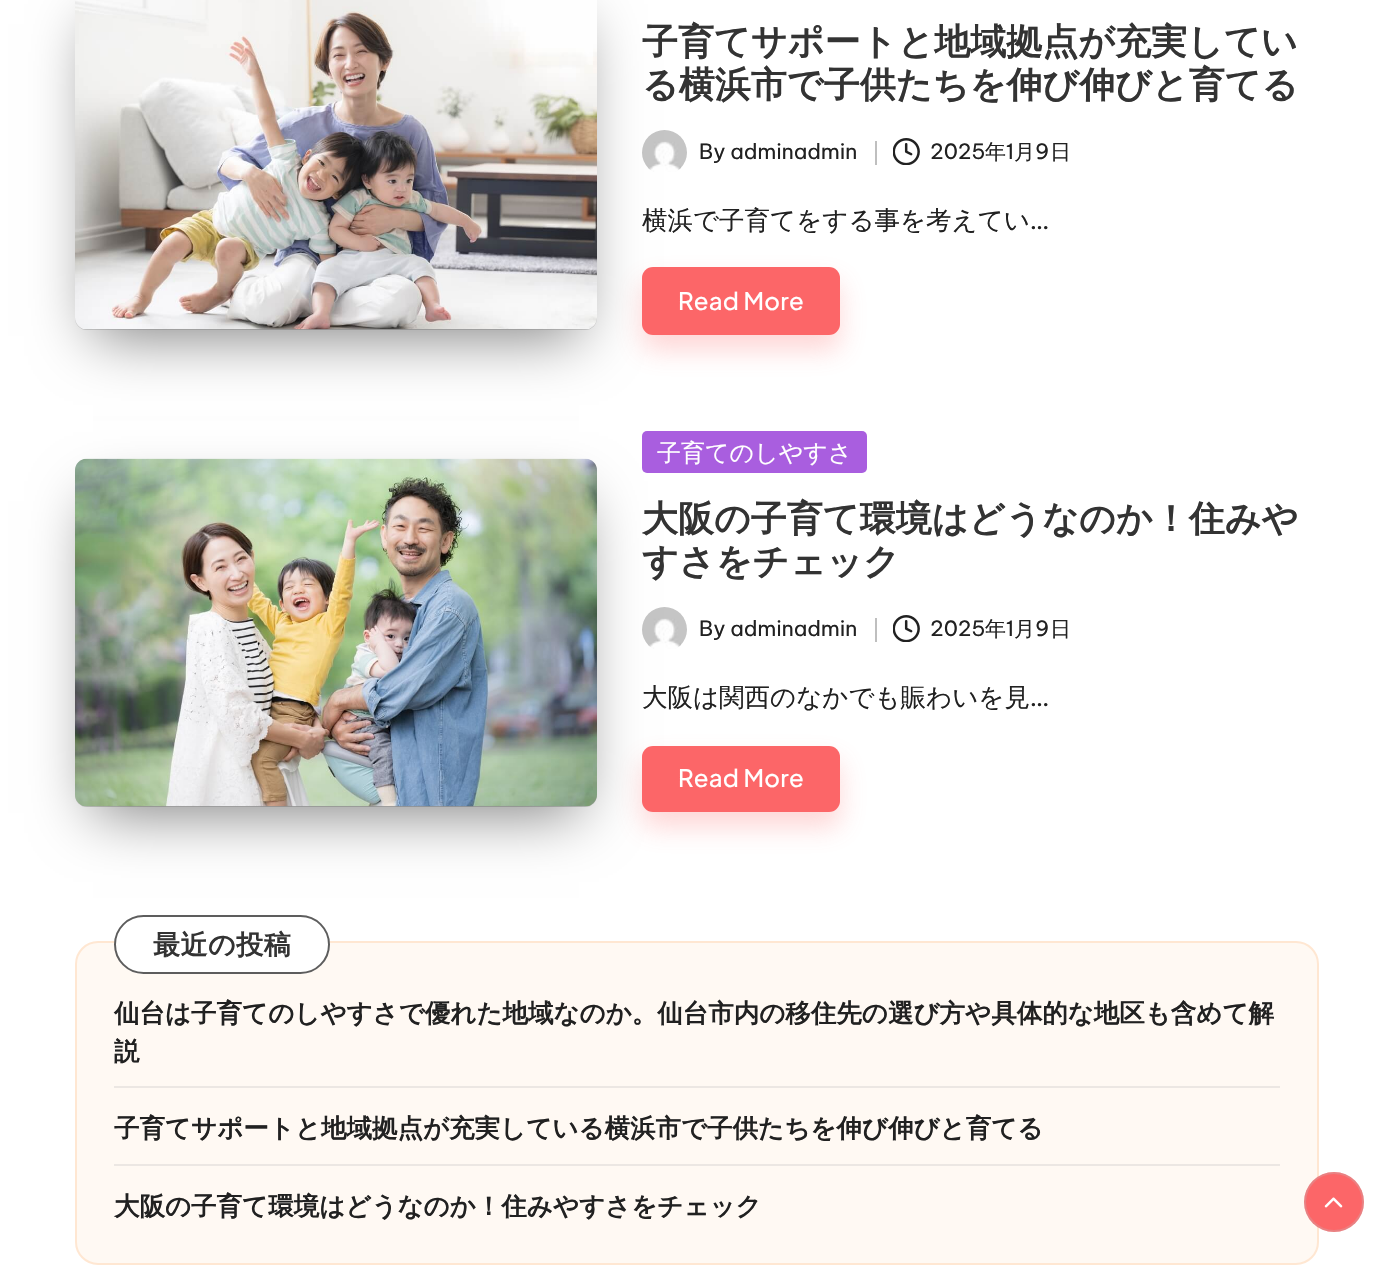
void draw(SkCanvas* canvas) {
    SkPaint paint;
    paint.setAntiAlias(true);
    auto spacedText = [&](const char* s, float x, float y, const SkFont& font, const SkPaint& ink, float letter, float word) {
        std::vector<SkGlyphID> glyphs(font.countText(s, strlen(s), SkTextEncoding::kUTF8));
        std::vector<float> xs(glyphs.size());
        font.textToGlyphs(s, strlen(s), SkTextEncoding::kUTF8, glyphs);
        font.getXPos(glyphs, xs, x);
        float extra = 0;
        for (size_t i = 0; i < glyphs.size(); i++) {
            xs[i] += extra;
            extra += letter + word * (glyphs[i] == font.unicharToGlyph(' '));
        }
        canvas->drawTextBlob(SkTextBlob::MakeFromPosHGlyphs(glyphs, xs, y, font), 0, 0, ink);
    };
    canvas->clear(0xFFFFFFFF);
    canvas->drawImageRect(SkImages::DeferredFromEncodedData(SkData::MakeFromFileName("img2.png")), SkRect::MakeXYWH(642, 130, 45, 42), SkSamplingOptions());
    paint.setColor(0x80000000);
    paint.setMaskFilter(SkMaskFilter::MakeBlur(kNormal_SkBlurStyle, 28.5f));
    canvas->drawRect(SkRect::MakeXYWH(93, 24, 486, 312), paint);
    paint.setMaskFilter(nullptr);
    paint.setColor(0x2E000000);
    canvas->drawRoundRect(SkRect::MakeXYWH(75, -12, 522, 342), 12, 12, paint);
    canvas->drawImageRect(SkImages::DeferredFromEncodedData(SkData::MakeFromFileName("img1.png")), SkRect::MakeXYWH(75, 0, 522, 330), SkSamplingOptions());
    SkFont font1(fontMgr->matchFamilyStyle("WenQuanYi Zen Hei", SkFontStyle::Bold()), 36);
    font1.setSubpixel(true);
    paint.setColor(0xFF333333);
    canvas->drawString("子育てサポートと地域拠点が充実してい", 642, 54, font1, paint);
    canvas->drawString("る横浜市で子供たちを伸び伸びと育てる", 642, 97, font1, paint);
    SkFont font2(fontMgr->matchFamilyStyle("Be Vietnam Pro", SkFontStyle::Normal()), 21);
    font2.setSubpixel(true);
    paint.setColor(0xFF212121);
    canvas->drawString("By adminadmin", 699, 159, font2, paint);
    paint.setColor(0xFFBFBFBF);
    canvas->drawRect(SkRect::MakeXYWH(875, 141, 2, 24), paint);
    canvas->drawImageRect(SkImages::DeferredFromEncodedData(SkData::MakeFromFileName("img3.png")), SkRect::MakeXYWH(893, 138, 27, 27), SkSamplingOptions());
    paint.setColor(0xFF212121);
    canvas->drawString("2025", 930, 159, font2, paint);
    SkFont font3(fontMgr->matchFamilyStyle("WenQuanYi Zen Hei", SkFontStyle(500, SkFontStyle::kNormal_Width, SkFontStyle::kUpright_Slant)), 21);
    font3.setSubpixel(true);
    canvas->drawString("年", 985, 159, font3, paint);
    canvas->drawString("1", 1006, 159, font2, paint);
    canvas->drawString("月", 1014, 159, font3, paint);
    canvas->drawString("9", 1035, 159, font2, paint);
    canvas->drawString("日", 1050, 159, font3, paint);
    SkFont font4(fontMgr->matchFamilyStyle("WenQuanYi Zen Hei", SkFontStyle(500, SkFontStyle::kNormal_Width, SkFontStyle::kUpright_Slant)), 25.5f);
    font4.setSubpixel(true);
    canvas->drawString("横浜で子育てをする事を考えてい", 642, 229, font4, paint);
    SkFont font5(fontMgr->matchFamilyStyle("Be Vietnam Pro", SkFontStyle::Normal()), 25.5f);
    font5.setSubpixel(true);
    canvas->drawString("…", 1030, 229, font5, paint);
    paint.setColor(0x45FC6668);
    paint.setMaskFilter(SkMaskFilter::MakeBlur(kNormal_SkBlurStyle, 13.5f));
    canvas->drawRoundRect(SkRect::MakeXYWH(642, 282, 198, 68), 11, 11, paint);
    paint.setMaskFilter(nullptr);
    paint.setColor(0xFFFC6668);
    canvas->drawRoundRect(SkRect::MakeXYWH(642, 267, 198, 68), 11, 11, paint);
    SkFont font6(fontMgr->matchFamilyStyle("Plus Jakarta Sans", SkFontStyle(500, SkFontStyle::kNormal_Width, SkFontStyle::kUpright_Slant)), 24);
    font6.setSubpixel(true);
    paint.setColor(0xFFFFFFFF);
    spacedText("Read More", 678, 310, font6, paint, 0.25f, 0);
    paint.setColor(0xFFA95EDF);
    canvas->drawRoundRect(SkRect::MakeXYWH(642, 431, 225, 42), 5, 5, paint);
    canvas->drawImageRect(SkImages::DeferredFromEncodedData(SkData::MakeFromFileName("img2.png")), SkRect::MakeXYWH(642, 607, 45, 42), SkSamplingOptions());
    paint.setColor(0x80000000);
    paint.setMaskFilter(SkMaskFilter::MakeBlur(kNormal_SkBlurStyle, 28.5f));
    canvas->drawRect(SkRect::MakeXYWH(93, 501, 486, 312), paint);
    paint.setMaskFilter(nullptr);
    paint.setColor(0x2E000000);
    canvas->drawRoundRect(SkRect::MakeXYWH(75, 459, 522, 348), 12, 12, paint);
    canvas->drawImageRect(SkImages::DeferredFromEncodedData(SkData::MakeFromFileName("img4.png")), SkRect::MakeXYWH(75, 458, 522, 349), SkSamplingOptions());
    SkFont font7(fontMgr->matchFamilyStyle("WenQuanYi Zen Hei", SkFontStyle(500, SkFontStyle::kNormal_Width, SkFontStyle::kUpright_Slant)), 24);
    font7.setSubpixel(true);
    paint.setColor(0xFFFFFFFF);
    canvas->drawString("子育てのしやすさ", 657, 461, font7, paint);
    paint.setColor(0xFF333333);
    canvas->drawString("大阪の子育て環境はどうなのか！住みや", 642, 531, font1, paint);
    canvas->drawString("すさをチェック", 642, 574, font1, paint);
    paint.setColor(0xFF212121);
    canvas->drawString("By adminadmin", 699, 636, font2, paint);
    paint.setColor(0xFFBFBFBF);
    canvas->drawRect(SkRect::MakeXYWH(875, 618, 2, 24), paint);
    canvas->drawImageRect(SkImages::DeferredFromEncodedData(SkData::MakeFromFileName("img3.png")), SkRect::MakeXYWH(893, 615, 27, 27), SkSamplingOptions());
    paint.setColor(0xFF212121);
    canvas->drawString("2025", 930, 636, font2, paint);
    canvas->drawString("年", 985, 636, font3, paint);
    canvas->drawString("1", 1006, 636, font2, paint);
    canvas->drawString("月", 1014, 636, font3, paint);
    canvas->drawString("9", 1035, 636, font2, paint);
    canvas->drawString("日", 1050, 636, font3, paint);
    canvas->drawString("大阪は関西のなかでも賑わいを見", 642, 706, font4, paint);
    canvas->drawString("…", 1030, 706, font5, paint);
    paint.setColor(0x45FC6668);
    paint.setMaskFilter(SkMaskFilter::MakeBlur(kNormal_SkBlurStyle, 13.5f));
    canvas->drawRoundRect(SkRect::MakeXYWH(642, 761, 198, 66), 11, 11, paint);
    paint.setMaskFilter(nullptr);
    paint.setColor(0xFFFC6668);
    canvas->drawRoundRect(SkRect::MakeXYWH(642, 746, 198, 66), 11, 11, paint);
    paint.setColor(0xFFFFFFFF);
    spacedText("Read More", 678, 787, font6, paint, 0.25f, 0);
    paint.setColor(0xFFFFF9F3);
    canvas->drawRoundRect(SkRect::MakeXYWH(76, 942, 1242, 322), 22, 22, paint);
    paint.setStyle(SkPaint::kStroke_Style);
    paint.setStrokeWidth(2);
    paint.setColor(0xFFFFE7D2);
    canvas->drawRoundRect(SkRect::MakeXYWH(76, 942, 1242, 322), 22, 22, paint);
    paint.setStyle(SkPaint::kFill_Style);
    paint.setColor(0xFFFFFFFF);
    canvas->drawRoundRect(SkRect::MakeXYWH(114, 915, 216, 59), 29.5f, 29.5f, paint);
    paint.setStyle(SkPaint::kStroke_Style);
    paint.setColor(0xBF272727);
    canvas->drawRoundRect(SkRect::MakeXYWH(115, 916, 214, 57), 28.5f, 28.5f, paint);
    SkFont font8(fontMgr->matchFamilyStyle("WenQuanYi Zen Hei", SkFontStyle::Bold()), 27);
    font8.setSubpixel(true);
    paint.setStyle(SkPaint::kFill_Style);
    paint.setColor(0xFF333333);
    spacedText("最近の投稿", 153, 954, font8, paint, 0.5f, 0);
    SkFont font9(fontMgr->matchFamilyStyle("WenQuanYi Zen Hei", SkFontStyle::Bold()), 25.5f);
    font9.setSubpixel(true);
    paint.setColor(0xFF212121);
    canvas->drawString("仙台は子育てのしやすさで優れた地域なのか。仙台市内の移住先の選び方や具体的な地区も含めて解", 114, 1022, font9, paint);
    canvas->drawString("説", 114, 1060, font9, paint);
    paint.setColor(0xFFECE7E3);
    canvas->drawRect(SkRect::MakeXYWH(114, 1086, 1166, 2), paint);
    paint.setColor(0xFF212121);
    canvas->drawString("子育てサポートと地域拠点が充実している横浜市で子供たちを伸び伸びと育てる", 114, 1137, font9, paint);
    paint.setColor(0xFFECE7E3);
    canvas->drawRect(SkRect::MakeXYWH(114, 1164, 1166, 2), paint);
    paint.setColor(0xFF212121);
    canvas->drawString("大阪の子育て環境はどうなのか！住みやすさをチェック", 114, 1215, font9, paint);
    paint.setColor(0xFFFC6668);
    canvas->drawCircle(1334, 1202, 30, paint);
    paint.setStyle(SkPaint::kStroke_Style);
    paint.setColor(0x4DBEBEBE);
    canvas->drawCircle(1334, 1202, 29, paint);
    canvas->drawImageRect(SkImages::DeferredFromEncodedData(SkData::MakeFromFileName("img5.png")), SkRect::MakeXYWH(1324, 1197, 19, 11), SkSamplingOptions());
}
